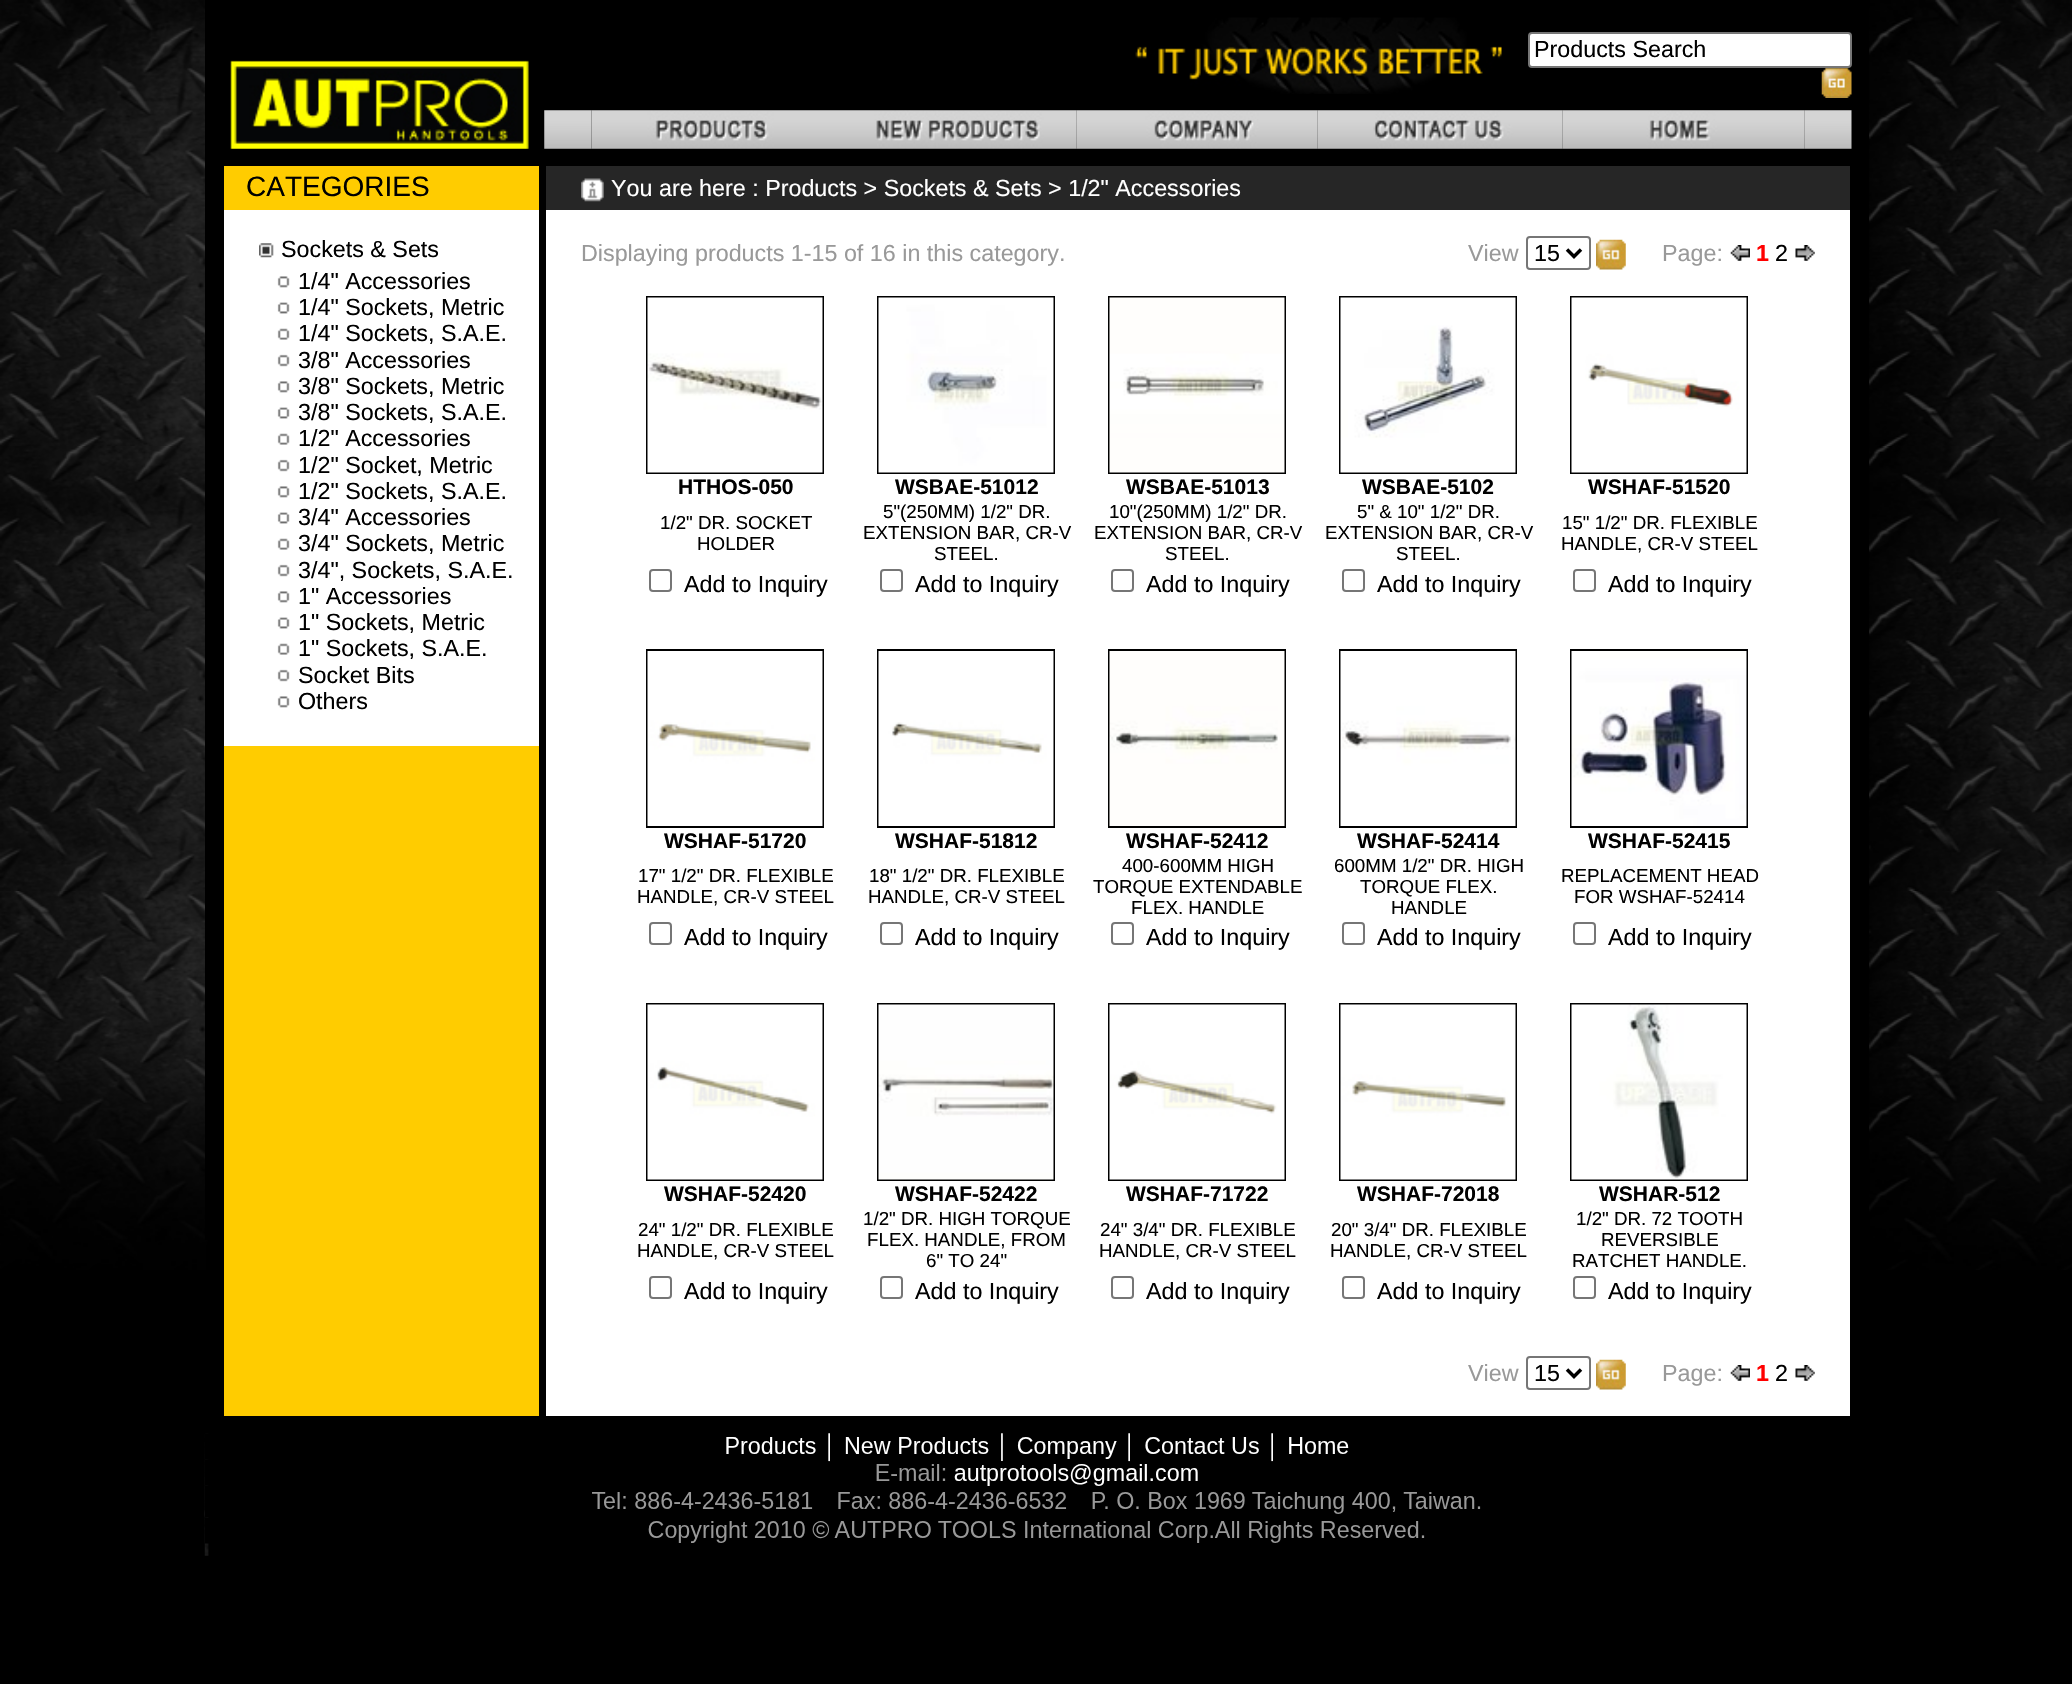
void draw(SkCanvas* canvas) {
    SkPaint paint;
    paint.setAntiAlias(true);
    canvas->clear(0xFF000000);
    canvas->drawImageRect(SkImages::DeferredFromEncodedData(SkData::MakeFromFileName("img1.png")), SkRect::MakeXYWH(0, 0, 2072, 1270), SkSamplingOptions());
    paint.setColor(0xFF000000);
    canvas->drawRect(SkRect::MakeXYWH(205, 0, 1664, 1240), paint);
    canvas->drawImageRect(SkImages::DeferredFromEncodedData(SkData::MakeFromFileName("img2.png")), SkRect::MakeXYWH(1135, 17, 367, 77), SkSamplingOptions());
    paint.setColor(0xFFFFFFFF);
    canvas->drawRoundRect(SkRect::MakeXYWH(1529, 33, 322, 34), 3, 3, paint);
    paint.setStyle(SkPaint::kStroke_Style);
    paint.setStrokeWidth(2);
    paint.setColor(0xFF767676);
    canvas->drawRoundRect(SkRect::MakeXYWH(1529, 33, 322, 34), 3, 3, paint);
    SkFont font1(fontMgr->matchFamilyStyle("Liberation Sans", SkFontStyle::Normal()), 23.3f);
    font1.setSubpixel(true);
    paint.setStyle(SkPaint::kFill_Style);
    paint.setColor(0xFF000000);
    canvas->drawString("Products Search", 1534, 57, font1, paint);
    canvas->drawImageRect(SkImages::DeferredFromEncodedData(SkData::MakeFromFileName("img3.png")), SkRect::MakeXYWH(1821, 68, 31, 30), SkSamplingOptions());
    canvas->drawImageRect(SkImages::DeferredFromEncodedData(SkData::MakeFromFileName("img4.png")), SkRect::MakeXYWH(230, 60, 299, 89), SkSamplingOptions());
    canvas->drawImageRect(SkImages::DeferredFromEncodedData(SkData::MakeFromFileName("img5.png")), SkRect::MakeXYWH(544, 110, 48, 39), SkSamplingOptions());
    canvas->drawImageRect(SkImages::DeferredFromEncodedData(SkData::MakeFromFileName("img6.png")), SkRect::MakeXYWH(591, 110, 242, 39), SkSamplingOptions());
    canvas->drawImageRect(SkImages::DeferredFromEncodedData(SkData::MakeFromFileName("img7.png")), SkRect::MakeXYWH(833, 110, 244, 39), SkSamplingOptions());
    canvas->drawImageRect(SkImages::DeferredFromEncodedData(SkData::MakeFromFileName("img8.png")), SkRect::MakeXYWH(1076, 110, 242, 39), SkSamplingOptions());
    canvas->drawImageRect(SkImages::DeferredFromEncodedData(SkData::MakeFromFileName("img9.png")), SkRect::MakeXYWH(1317, 110, 246, 39), SkSamplingOptions());
    canvas->drawImageRect(SkImages::DeferredFromEncodedData(SkData::MakeFromFileName("img5.png")), SkRect::MakeXYWH(1804, 110, 48, 39), SkSamplingOptions());
    canvas->drawImageRect(SkImages::DeferredFromEncodedData(SkData::MakeFromFileName("img10.png")), SkRect::MakeXYWH(1562, 110, 243, 39), SkSamplingOptions());
    paint.setColor(0xFFFFCC00);
    canvas->drawRect(SkRect::MakeXYWH(224, 166, 315, 44), paint);
    SkFont font2(fontMgr->matchFamilyStyle("Liberation Sans", SkFontStyle::Normal()), 28);
    font2.setSubpixel(true);
    paint.setColor(0xFF000000);
    canvas->drawString("CATEGORIES", 246, 196, font2, paint);
    paint.setColor(0xFF262626);
    canvas->drawRect(SkRect::MakeXYWH(546, 166, 1304, 44), paint);
    canvas->drawImageRect(SkImages::DeferredFromEncodedData(SkData::MakeFromFileName("img11.png")), SkRect::MakeXYWH(581, 178, 23, 24), SkSamplingOptions());
    paint.setColor(0xFFFFFFFF);
    canvas->drawString("You are here : Products > Sockets & Sets > 1/2\" Accessories", 611, 196, font1, paint);
    paint.setColor(0xFFFFCC00);
    canvas->drawRect(SkRect::MakeXYWH(224, 772, 315, 644), paint);
    paint.setColor(0xFFFFFFFF);
    canvas->drawRect(SkRect::MakeXYWH(224, 210, 315, 536), paint);
    canvas->drawImageRect(SkImages::DeferredFromEncodedData(SkData::MakeFromFileName("img12.png")), SkRect::MakeXYWH(259, 243, 15, 15), SkSamplingOptions());
    paint.setColor(0xFF000000);
    canvas->drawString("Sockets & Sets", 281, 257, font1, paint);
    canvas->drawImageRect(SkImages::DeferredFromEncodedData(SkData::MakeFromFileName("img13.png")), SkRect::MakeXYWH(277, 276, 13, 12), SkSamplingOptions());
    canvas->drawString("1/4\" Accessories", 298, 289, font1, paint);
    canvas->drawImageRect(SkImages::DeferredFromEncodedData(SkData::MakeFromFileName("img14.png")), SkRect::MakeXYWH(277, 302, 13, 12), SkSamplingOptions());
    canvas->drawString("1/4\" Sockets, Metric", 298, 315, font1, paint);
    canvas->drawImageRect(SkImages::DeferredFromEncodedData(SkData::MakeFromFileName("img15.png")), SkRect::MakeXYWH(277, 328, 13, 12), SkSamplingOptions());
    canvas->drawString("1/4\" Sockets, S.A.E.", 298, 341, font1, paint);
    canvas->drawImageRect(SkImages::DeferredFromEncodedData(SkData::MakeFromFileName("img16.png")), SkRect::MakeXYWH(277, 354, 13, 13), SkSamplingOptions());
    canvas->drawString("3/8\" Accessories", 298, 368, font1, paint);
    canvas->drawImageRect(SkImages::DeferredFromEncodedData(SkData::MakeFromFileName("img13.png")), SkRect::MakeXYWH(277, 381, 13, 12), SkSamplingOptions());
    canvas->drawString("3/8\" Sockets, Metric", 298, 394, font1, paint);
    canvas->drawImageRect(SkImages::DeferredFromEncodedData(SkData::MakeFromFileName("img14.png")), SkRect::MakeXYWH(277, 407, 13, 12), SkSamplingOptions());
    canvas->drawString("3/8\" Sockets, S.A.E.", 298, 420, font1, paint);
    canvas->drawImageRect(SkImages::DeferredFromEncodedData(SkData::MakeFromFileName("img15.png")), SkRect::MakeXYWH(277, 433, 13, 12), SkSamplingOptions());
    canvas->drawString("1/2\" Accessories", 298, 446, font1, paint);
    canvas->drawImageRect(SkImages::DeferredFromEncodedData(SkData::MakeFromFileName("img16.png")), SkRect::MakeXYWH(277, 459, 13, 13), SkSamplingOptions());
    canvas->drawString("1/2\" Socket, Metric", 298, 473, font1, paint);
    canvas->drawImageRect(SkImages::DeferredFromEncodedData(SkData::MakeFromFileName("img13.png")), SkRect::MakeXYWH(277, 486, 13, 12), SkSamplingOptions());
    canvas->drawString("1/2\" Sockets, S.A.E.", 298, 499, font1, paint);
    canvas->drawImageRect(SkImages::DeferredFromEncodedData(SkData::MakeFromFileName("img14.png")), SkRect::MakeXYWH(277, 512, 13, 12), SkSamplingOptions());
    canvas->drawString("3/4\" Accessories", 298, 525, font1, paint);
    canvas->drawImageRect(SkImages::DeferredFromEncodedData(SkData::MakeFromFileName("img15.png")), SkRect::MakeXYWH(277, 538, 13, 12), SkSamplingOptions());
    canvas->drawString("3/4\" Sockets, Metric", 298, 551, font1, paint);
    canvas->drawImageRect(SkImages::DeferredFromEncodedData(SkData::MakeFromFileName("img16.png")), SkRect::MakeXYWH(277, 564, 13, 13), SkSamplingOptions());
    canvas->drawString("3/4\", Sockets, S.A.E.", 298, 578, font1, paint);
    canvas->drawImageRect(SkImages::DeferredFromEncodedData(SkData::MakeFromFileName("img13.png")), SkRect::MakeXYWH(277, 591, 13, 12), SkSamplingOptions());
    canvas->drawString("1\" Accessories", 298, 604, font1, paint);
    canvas->drawImageRect(SkImages::DeferredFromEncodedData(SkData::MakeFromFileName("img14.png")), SkRect::MakeXYWH(277, 617, 13, 12), SkSamplingOptions());
    canvas->drawString("1\" Sockets, Metric", 298, 630, font1, paint);
    canvas->drawImageRect(SkImages::DeferredFromEncodedData(SkData::MakeFromFileName("img15.png")), SkRect::MakeXYWH(277, 643, 13, 12), SkSamplingOptions());
    canvas->drawString("1\" Sockets, S.A.E.", 298, 656, font1, paint);
    canvas->drawImageRect(SkImages::DeferredFromEncodedData(SkData::MakeFromFileName("img16.png")), SkRect::MakeXYWH(277, 669, 13, 13), SkSamplingOptions());
    canvas->drawString("Socket Bits", 298, 683, font1, paint);
    canvas->drawImageRect(SkImages::DeferredFromEncodedData(SkData::MakeFromFileName("img13.png")), SkRect::MakeXYWH(277, 696, 13, 12), SkSamplingOptions());
    canvas->drawString("Others", 298, 709, font1, paint);
    paint.setColor(0xFFFFCC00);
    canvas->drawRect(SkRect::MakeXYWH(224, 746, 315, 26), paint);
    paint.setColor(0xFFFFFFFF);
    canvas->drawRect(SkRect::MakeXYWH(546, 210, 1304, 1206), paint);
    paint.setColor(0xFF999999);
    canvas->drawString("Displaying products 1-15 of 16 in this category.", 581, 261, font1, paint);
    canvas->drawString("View", 1468, 261, font1, paint);
    paint.setStyle(SkPaint::kStroke_Style);
    paint.setColor(0xFF767676);
    canvas->drawRoundRect(SkRect::MakeXYWH(1527, 237, 63, 32), 3, 3, paint);
    paint.setStrokeWidth(3.5f);
    paint.setColor(0xFF000000);
    canvas->drawPath(SkPathBuilder().moveTo(1567, 249.5f).lineTo(1574, 256.5f).lineTo(1581, 249.5f).detach(), paint);
    paint.setStyle(SkPaint::kFill_Style);
    canvas->drawString("15", 1534, 261, font1, paint);
    canvas->drawImageRect(SkImages::DeferredFromEncodedData(SkData::MakeFromFileName("img17.png")), SkRect::MakeXYWH(1596, 239, 30, 31), SkSamplingOptions());
    paint.setColor(0xFF999999);
    canvas->drawString("Page:", 1662, 261, font1, paint);
    canvas->drawImageRect(SkImages::DeferredFromEncodedData(SkData::MakeFromFileName("img18.png")), SkRect::MakeXYWH(1730, 245, 20, 16), SkSamplingOptions());
    SkFont font3(fontMgr->matchFamilyStyle("Liberation Sans", SkFontStyle::Bold()), 23.3f);
    font3.setSubpixel(true);
    paint.setColor(0xFFFF0000);
    canvas->drawString("1", 1756, 261, font3, paint);
    paint.setColor(0xFF000000);
    canvas->drawString("2", 1775, 261, font1, paint);
    canvas->drawImageRect(SkImages::DeferredFromEncodedData(SkData::MakeFromFileName("img19.png")), SkRect::MakeXYWH(1795, 245, 20, 16), SkSamplingOptions());
    paint.setStyle(SkPaint::kStroke_Style);
    paint.setStrokeWidth(2);
    canvas->drawRect(SkRect::MakeXYWH(647, 297, 176, 176), paint);
    canvas->drawImageRect(SkImages::DeferredFromEncodedData(SkData::MakeFromFileName("img20.png")), SkRect::MakeXYWH(647, 297, 176, 176), SkSamplingOptions());
    canvas->drawRect(SkRect::MakeXYWH(878, 297, 176, 176), paint);
    canvas->drawImageRect(SkImages::DeferredFromEncodedData(SkData::MakeFromFileName("img21.png")), SkRect::MakeXYWH(878, 297, 176, 176), SkSamplingOptions());
    canvas->drawRect(SkRect::MakeXYWH(1109, 297, 176, 176), paint);
    canvas->drawImageRect(SkImages::DeferredFromEncodedData(SkData::MakeFromFileName("img22.png")), SkRect::MakeXYWH(1109, 297, 176, 176), SkSamplingOptions());
    canvas->drawRect(SkRect::MakeXYWH(1340, 297, 176, 176), paint);
    canvas->drawImageRect(SkImages::DeferredFromEncodedData(SkData::MakeFromFileName("img23.png")), SkRect::MakeXYWH(1340, 297, 176, 176), SkSamplingOptions());
    canvas->drawRect(SkRect::MakeXYWH(1571, 297, 176, 176), paint);
    canvas->drawImageRect(SkImages::DeferredFromEncodedData(SkData::MakeFromFileName("img24.png")), SkRect::MakeXYWH(1571, 297, 176, 176), SkSamplingOptions());
    SkFont font4(fontMgr->matchFamilyStyle("Liberation Sans", SkFontStyle::Bold()), 21);
    font4.setSubpixel(true);
    paint.setStyle(SkPaint::kFill_Style);
    canvas->drawString("HTHOS-050", 678, 494, font4, paint);
    canvas->drawString("WSBAE-51012", 895, 494, font4, paint);
    canvas->drawString("WSBAE-51013", 1126, 494, font4, paint);
    canvas->drawString("WSBAE-5102", 1362, 494, font4, paint);
    canvas->drawString("WSHAF-51520", 1588, 494, font4, paint);
    SkFont font5(fontMgr->matchFamilyStyle("Liberation Sans", SkFontStyle::Normal()), 18.75f);
    font5.setSubpixel(true);
    canvas->drawString("1/2\" DR. SOCKET", 660, 529, font5, paint);
    canvas->drawString("HOLDER", 697, 550, font5, paint);
    canvas->drawString("5\"(250MM) 1/2\" DR.", 883, 518, font5, paint);
    canvas->drawString("EXTENSION BAR, CR-V", 863, 539, font5, paint);
    canvas->drawString("STEEL.", 934, 560, font5, paint);
    canvas->drawString("10\"(250MM) 1/2\" DR.", 1109, 518, font5, paint);
    canvas->drawString("EXTENSION BAR, CR-V", 1094, 539, font5, paint);
    canvas->drawString("STEEL.", 1165, 560, font5, paint);
    canvas->drawString("5\" & 10\" 1/2\" DR.", 1357, 518, font5, paint);
    canvas->drawString("EXTENSION BAR, CR-V", 1325, 539, font5, paint);
    canvas->drawString("STEEL.", 1396, 560, font5, paint);
    canvas->drawString("15\" 1/2\" DR. FLEXIBLE", 1562, 529, font5, paint);
    canvas->drawString("HANDLE, CR-V STEEL", 1561, 550, font5, paint);
    paint.setStyle(SkPaint::kStroke_Style);
    paint.setColor(0xFF767676);
    canvas->drawRoundRect(SkRect::MakeXYWH(650, 570, 21, 21), 3, 3, paint);
    paint.setStyle(SkPaint::kFill_Style);
    paint.setColor(0xFF000000);
    canvas->drawString("Add to Inquiry", 684, 592, font1, paint);
    paint.setStyle(SkPaint::kStroke_Style);
    paint.setColor(0xFF767676);
    canvas->drawRoundRect(SkRect::MakeXYWH(881, 570, 21, 21), 3, 3, paint);
    paint.setStyle(SkPaint::kFill_Style);
    paint.setColor(0xFF000000);
    canvas->drawString("Add to Inquiry", 915, 592, font1, paint);
    paint.setStyle(SkPaint::kStroke_Style);
    paint.setColor(0xFF767676);
    canvas->drawRoundRect(SkRect::MakeXYWH(1112, 570, 21, 21), 3, 3, paint);
    paint.setStyle(SkPaint::kFill_Style);
    paint.setColor(0xFF000000);
    canvas->drawString("Add to Inquiry", 1146, 592, font1, paint);
    paint.setStyle(SkPaint::kStroke_Style);
    paint.setColor(0xFF767676);
    canvas->drawRoundRect(SkRect::MakeXYWH(1343, 570, 21, 21), 3, 3, paint);
    paint.setStyle(SkPaint::kFill_Style);
    paint.setColor(0xFF000000);
    canvas->drawString("Add to Inquiry", 1377, 592, font1, paint);
    paint.setStyle(SkPaint::kStroke_Style);
    paint.setColor(0xFF767676);
    canvas->drawRoundRect(SkRect::MakeXYWH(1574, 570, 21, 21), 3, 3, paint);
    paint.setStyle(SkPaint::kFill_Style);
    paint.setColor(0xFF000000);
    canvas->drawString("Add to Inquiry", 1608, 592, font1, paint);
    paint.setStyle(SkPaint::kStroke_Style);
    canvas->drawRect(SkRect::MakeXYWH(647, 650, 176, 177), paint);
    canvas->drawImageRect(SkImages::DeferredFromEncodedData(SkData::MakeFromFileName("img25.png")), SkRect::MakeXYWH(647, 651, 176, 175), SkSamplingOptions());
    canvas->drawRect(SkRect::MakeXYWH(878, 650, 176, 177), paint);
    canvas->drawImageRect(SkImages::DeferredFromEncodedData(SkData::MakeFromFileName("img26.png")), SkRect::MakeXYWH(878, 651, 176, 175), SkSamplingOptions());
    canvas->drawRect(SkRect::MakeXYWH(1109, 650, 176, 177), paint);
    canvas->drawImageRect(SkImages::DeferredFromEncodedData(SkData::MakeFromFileName("img27.png")), SkRect::MakeXYWH(1109, 651, 176, 175), SkSamplingOptions());
    canvas->drawRect(SkRect::MakeXYWH(1340, 650, 176, 177), paint);
    canvas->drawImageRect(SkImages::DeferredFromEncodedData(SkData::MakeFromFileName("img28.png")), SkRect::MakeXYWH(1340, 651, 176, 175), SkSamplingOptions());
    canvas->drawRect(SkRect::MakeXYWH(1571, 650, 176, 177), paint);
    canvas->drawImageRect(SkImages::DeferredFromEncodedData(SkData::MakeFromFileName("img29.png")), SkRect::MakeXYWH(1571, 651, 176, 175), SkSamplingOptions());
    paint.setStyle(SkPaint::kFill_Style);
    canvas->drawString("WSHAF-51720", 664, 848, font4, paint);
    canvas->drawString("WSHAF-51812", 895, 848, font4, paint);
    canvas->drawString("WSHAF-52412", 1126, 848, font4, paint);
    canvas->drawString("WSHAF-52414", 1357, 848, font4, paint);
    canvas->drawString("WSHAF-52415", 1588, 848, font4, paint);
    canvas->drawString("17\" 1/2\" DR. FLEXIBLE", 638, 882, font5, paint);
    canvas->drawString("HANDLE, CR-V STEEL", 637, 903, font5, paint);
    canvas->drawString("18\" 1/2\" DR. FLEXIBLE", 869, 882, font5, paint);
    canvas->drawString("HANDLE, CR-V STEEL", 868, 903, font5, paint);
    canvas->drawString("400-600MM HIGH", 1122, 872, font5, paint);
    canvas->drawString("TORQUE EXTENDABLE", 1093, 893, font5, paint);
    canvas->drawString("FLEX. HANDLE", 1131, 914, font5, paint);
    canvas->drawString("600MM 1/2\" DR. HIGH", 1334, 872, font5, paint);
    canvas->drawString("TORQUE FLEX.", 1360, 893, font5, paint);
    canvas->drawString("HANDLE", 1391, 914, font5, paint);
    canvas->drawString("REPLACEMENT HEAD", 1561, 882, font5, paint);
    canvas->drawString("FOR WSHAF-52414", 1574, 903, font5, paint);
    paint.setStyle(SkPaint::kStroke_Style);
    paint.setColor(0xFF767676);
    canvas->drawRoundRect(SkRect::MakeXYWH(650, 923, 21, 21), 3, 3, paint);
    paint.setStyle(SkPaint::kFill_Style);
    paint.setColor(0xFF000000);
    canvas->drawString("Add to Inquiry", 684, 945, font1, paint);
    paint.setStyle(SkPaint::kStroke_Style);
    paint.setColor(0xFF767676);
    canvas->drawRoundRect(SkRect::MakeXYWH(881, 923, 21, 21), 3, 3, paint);
    paint.setStyle(SkPaint::kFill_Style);
    paint.setColor(0xFF000000);
    canvas->drawString("Add to Inquiry", 915, 945, font1, paint);
    paint.setStyle(SkPaint::kStroke_Style);
    paint.setColor(0xFF767676);
    canvas->drawRoundRect(SkRect::MakeXYWH(1112, 923, 21, 21), 3, 3, paint);
    paint.setStyle(SkPaint::kFill_Style);
    paint.setColor(0xFF000000);
    canvas->drawString("Add to Inquiry", 1146, 945, font1, paint);
    paint.setStyle(SkPaint::kStroke_Style);
    paint.setColor(0xFF767676);
    canvas->drawRoundRect(SkRect::MakeXYWH(1343, 923, 21, 21), 3, 3, paint);
    paint.setStyle(SkPaint::kFill_Style);
    paint.setColor(0xFF000000);
    canvas->drawString("Add to Inquiry", 1377, 945, font1, paint);
    paint.setStyle(SkPaint::kStroke_Style);
    paint.setColor(0xFF767676);
    canvas->drawRoundRect(SkRect::MakeXYWH(1574, 923, 21, 21), 3, 3, paint);
    paint.setStyle(SkPaint::kFill_Style);
    paint.setColor(0xFF000000);
    canvas->drawString("Add to Inquiry", 1608, 945, font1, paint);
    paint.setStyle(SkPaint::kStroke_Style);
    canvas->drawRect(SkRect::MakeXYWH(647, 1004, 176, 176), paint);
    canvas->drawImageRect(SkImages::DeferredFromEncodedData(SkData::MakeFromFileName("img30.png")), SkRect::MakeXYWH(647, 1004, 176, 176), SkSamplingOptions());
    canvas->drawRect(SkRect::MakeXYWH(878, 1004, 176, 176), paint);
    canvas->drawImageRect(SkImages::DeferredFromEncodedData(SkData::MakeFromFileName("img31.png")), SkRect::MakeXYWH(878, 1004, 176, 176), SkSamplingOptions());
    canvas->drawRect(SkRect::MakeXYWH(1109, 1004, 176, 176), paint);
    canvas->drawImageRect(SkImages::DeferredFromEncodedData(SkData::MakeFromFileName("img32.png")), SkRect::MakeXYWH(1109, 1004, 176, 176), SkSamplingOptions());
    canvas->drawRect(SkRect::MakeXYWH(1340, 1004, 176, 176), paint);
    canvas->drawImageRect(SkImages::DeferredFromEncodedData(SkData::MakeFromFileName("img33.png")), SkRect::MakeXYWH(1340, 1004, 176, 176), SkSamplingOptions());
    canvas->drawRect(SkRect::MakeXYWH(1571, 1004, 176, 176), paint);
    canvas->drawImageRect(SkImages::DeferredFromEncodedData(SkData::MakeFromFileName("img34.png")), SkRect::MakeXYWH(1571, 1004, 176, 176), SkSamplingOptions());
    paint.setStyle(SkPaint::kFill_Style);
    canvas->drawString("WSHAF-52420", 664, 1201, font4, paint);
    canvas->drawString("WSHAF-52422", 895, 1201, font4, paint);
    canvas->drawString("WSHAF-71722", 1126, 1201, font4, paint);
    canvas->drawString("WSHAF-72018", 1357, 1201, font4, paint);
    canvas->drawString("WSHAR-512", 1599, 1201, font4, paint);
    canvas->drawString("24\" 1/2\" DR. FLEXIBLE", 638, 1236, font5, paint);
    canvas->drawString("HANDLE, CR-V STEEL", 637, 1257, font5, paint);
    canvas->drawString("1/2\" DR. HIGH TORQUE", 863, 1225, font5, paint);
    canvas->drawString("FLEX. HANDLE, FROM", 867, 1246, font5, paint);
    canvas->drawString("6\" TO 24\"", 926, 1267, font5, paint);
    canvas->drawString("24\" 3/4\" DR. FLEXIBLE", 1100, 1236, font5, paint);
    canvas->drawString("HANDLE, CR-V STEEL", 1099, 1257, font5, paint);
    canvas->drawString("20\" 3/4\" DR. FLEXIBLE", 1331, 1236, font5, paint);
    canvas->drawString("HANDLE, CR-V STEEL", 1330, 1257, font5, paint);
    canvas->drawString("1/2\" DR. 72 TOOTH", 1576, 1225, font5, paint);
    canvas->drawString("REVERSIBLE", 1601, 1246, font5, paint);
    canvas->drawString("RATCHET HANDLE.", 1572, 1267, font5, paint);
    paint.setStyle(SkPaint::kStroke_Style);
    paint.setColor(0xFF767676);
    canvas->drawRoundRect(SkRect::MakeXYWH(650, 1277, 21, 21), 3, 3, paint);
    paint.setStyle(SkPaint::kFill_Style);
    paint.setColor(0xFF000000);
    canvas->drawString("Add to Inquiry", 684, 1299, font1, paint);
    paint.setStyle(SkPaint::kStroke_Style);
    paint.setColor(0xFF767676);
    canvas->drawRoundRect(SkRect::MakeXYWH(881, 1277, 21, 21), 3, 3, paint);
    paint.setStyle(SkPaint::kFill_Style);
    paint.setColor(0xFF000000);
    canvas->drawString("Add to Inquiry", 915, 1299, font1, paint);
    paint.setStyle(SkPaint::kStroke_Style);
    paint.setColor(0xFF767676);
    canvas->drawRoundRect(SkRect::MakeXYWH(1112, 1277, 21, 21), 3, 3, paint);
    paint.setStyle(SkPaint::kFill_Style);
    paint.setColor(0xFF000000);
    canvas->drawString("Add to Inquiry", 1146, 1299, font1, paint);
    paint.setStyle(SkPaint::kStroke_Style);
    paint.setColor(0xFF767676);
    canvas->drawRoundRect(SkRect::MakeXYWH(1343, 1277, 21, 21), 3, 3, paint);
    paint.setStyle(SkPaint::kFill_Style);
    paint.setColor(0xFF000000);
    canvas->drawString("Add to Inquiry", 1377, 1299, font1, paint);
    paint.setStyle(SkPaint::kStroke_Style);
    paint.setColor(0xFF767676);
    canvas->drawRoundRect(SkRect::MakeXYWH(1574, 1277, 21, 21), 3, 3, paint);
    paint.setStyle(SkPaint::kFill_Style);
    paint.setColor(0xFF000000);
    canvas->drawString("Add to Inquiry", 1608, 1299, font1, paint);
    paint.setColor(0xFF999999);
    canvas->drawString("View", 1468, 1381, font1, paint);
    paint.setStyle(SkPaint::kStroke_Style);
    paint.setColor(0xFF767676);
    canvas->drawRoundRect(SkRect::MakeXYWH(1527, 1357, 63, 32), 3, 3, paint);
    paint.setStrokeWidth(3.5f);
    paint.setColor(0xFF000000);
    canvas->drawPath(SkPathBuilder().moveTo(1567, 1369.5f).lineTo(1574, 1376.5f).lineTo(1581, 1369.5f).detach(), paint);
    paint.setStyle(SkPaint::kFill_Style);
    canvas->drawString("15", 1534, 1381, font1, paint);
    canvas->drawImageRect(SkImages::DeferredFromEncodedData(SkData::MakeFromFileName("img17.png")), SkRect::MakeXYWH(1596, 1359, 30, 31), SkSamplingOptions());
    paint.setColor(0xFF999999);
    canvas->drawString("Page:", 1662, 1381, font1, paint);
    canvas->drawImageRect(SkImages::DeferredFromEncodedData(SkData::MakeFromFileName("img18.png")), SkRect::MakeXYWH(1730, 1365, 20, 16), SkSamplingOptions());
    paint.setColor(0xFFFF0000);
    canvas->drawString("1", 1756, 1381, font3, paint);
    paint.setColor(0xFF000000);
    canvas->drawString("2", 1775, 1381, font1, paint);
    canvas->drawImageRect(SkImages::DeferredFromEncodedData(SkData::MakeFromFileName("img19.png")), SkRect::MakeXYWH(1795, 1365, 20, 16), SkSamplingOptions());
    canvas->drawImageRect(SkImages::DeferredFromEncodedData(SkData::MakeFromFileName("img35.png")), SkRect::MakeXYWH(204, 1433, 1277, 123), SkSamplingOptions());
}
